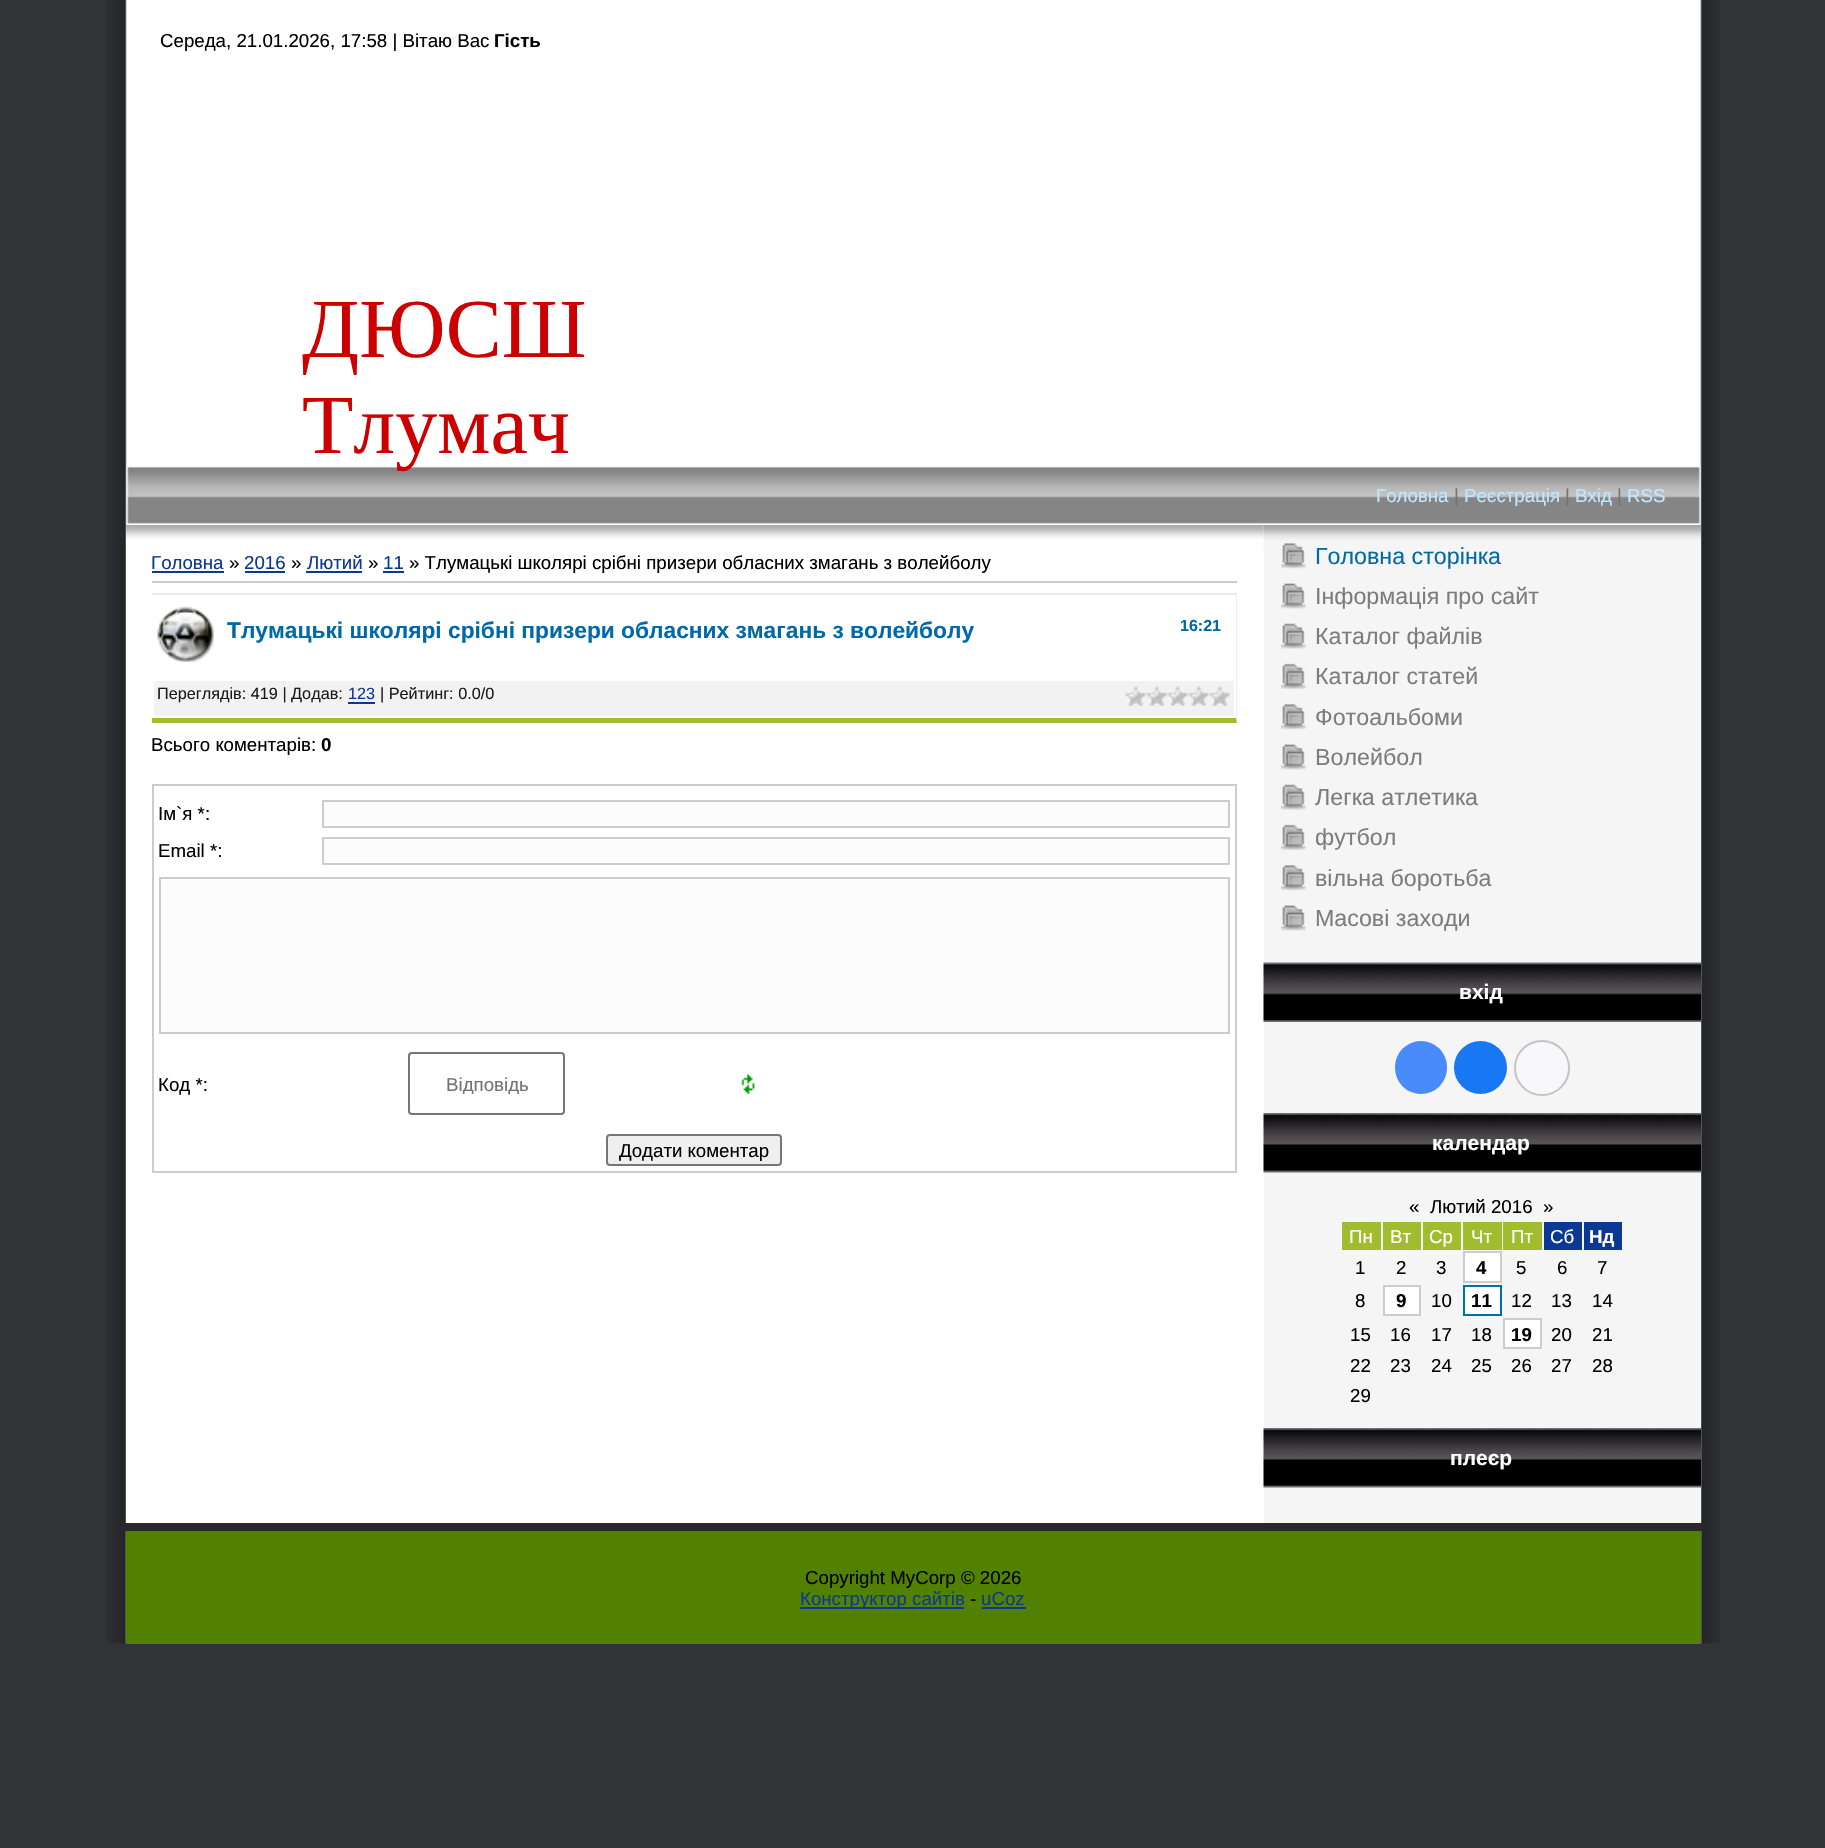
void draw(SkCanvas* canvas) {
    SkPaint paint;
    paint.setAntiAlias(true);
    canvas->clear(0xFF313337);
    canvas->drawImageRect(SkImages::DeferredFromEncodedData(SkData::MakeFromFileName("img1.png")), SkRect::MakeXYWH(107, 0, 1613, 1644), SkSamplingOptions());
    SkFont font1(fontMgr->matchFamilyStyle("Liberation Sans", SkFontStyle::Normal()), 18.7f);
    font1.setSubpixel(true);
    paint.setColor(0xFF000000);
    canvas->drawString("Середа, 21.01.2026, 17:58 | Вітаю Вас", 160, 47, font1, paint);
    SkFont font2(fontMgr->matchFamilyStyle("Liberation Sans", SkFontStyle::Bold()), 18.7f);
    font2.setSubpixel(true);
    canvas->drawString("Гість", 494, 47, font2, paint);
    SkFont font3(fontMgr->matchFamilyStyle("Liberation Serif", SkFontStyle::Normal()), 84);
    font3.setSubpixel(true);
    paint.setColor(0xFFCC0000);
    canvas->drawString("ДЮСШ", 302, 357, font3, paint);
    canvas->drawImageRect(SkImages::DeferredFromEncodedData(SkData::MakeFromFileName("img2.png")), SkRect::MakeXYWH(126, 465, 1575, 60), SkSamplingOptions());
    canvas->drawString("Тлумач", 302, 453, font3, paint);
    paint.setColor(0xFFC1E7FF);
    canvas->drawString("Головна", 1376, 502, font1, paint);
    paint.setColor(0xFF727272);
    canvas->drawString("|", 1454, 502, font1, paint);
    paint.setColor(0xFFC1E7FF);
    canvas->drawString("Реєстрація", 1464, 502, font1, paint);
    paint.setColor(0xFF727272);
    canvas->drawString("|", 1565, 502, font1, paint);
    paint.setColor(0xFFC1E7FF);
    canvas->drawString("Вхід", 1575, 502, font1, paint);
    paint.setColor(0xFF727272);
    canvas->drawString("|", 1617, 502, font1, paint);
    paint.setColor(0xFFC1E7FF);
    canvas->drawString("RSS", 1627, 502, font1, paint);
    paint.setColor(0xFFFFFFFF);
    canvas->drawRect(SkRect::MakeXYWH(126, 525, 1, 998), paint);
    canvas->drawImageRect(SkImages::DeferredFromEncodedData(SkData::MakeFromFileName("img3.png")), SkRect::MakeXYWH(126, 525, 1138, 14), SkSamplingOptions());
    paint.setColor(0xFF0B3893);
    canvas->drawString("Головна", 151, 569, font1, paint);
    canvas->drawRect(SkRect::MakeXYWH(152, 571, 72, 2), paint);
    paint.setColor(0xFF000000);
    canvas->drawString("»", 229, 569, font1, paint);
    paint.setColor(0xFF0B3893);
    canvas->drawString("2016", 244, 569, font1, paint);
    canvas->drawRect(SkRect::MakeXYWH(245, 571, 40, 2), paint);
    paint.setColor(0xFF000000);
    canvas->drawString("»", 291, 569, font1, paint);
    paint.setColor(0xFF0B3893);
    canvas->drawString("Лютий", 307, 569, font1, paint);
    canvas->drawRect(SkRect::MakeXYWH(306, 571, 56, 2), paint);
    paint.setColor(0xFF000000);
    canvas->drawString("»", 368, 569, font1, paint);
    paint.setColor(0xFF0B3893);
    canvas->drawString("11", 383, 569, font1, paint);
    canvas->drawRect(SkRect::MakeXYWH(383, 571, 21, 2), paint);
    paint.setColor(0xFF000000);
    canvas->drawString("» Тлумацькі школярі срібні призери обласних змагань з волейболу", 409, 569, font1, paint);
    paint.setColor(0xFFCCCCCC);
    canvas->drawRect(SkRect::MakeXYWH(152, 581, 1085, 2), paint);
    paint.setColor(0xFFEBEBEB);
    canvas->drawRect(SkRect::MakeXYWH(152, 593, 1085, 2), paint);
    canvas->drawPath(SkPathBuilder().moveTo(1237, 593).lineTo(1237, 723).lineTo(1236, 718).lineTo(1236, 595).close().detach(), paint);
    paint.setColor(0xFFA3BD31);
    canvas->drawPath(SkPathBuilder().moveTo(1237, 723).lineTo(152, 723).lineTo(152, 718).lineTo(1236, 718).close().detach(), paint);
    canvas->drawImageRect(SkImages::DeferredFromEncodedData(SkData::MakeFromFileName("img4.png")), SkRect::MakeXYWH(157, 606, 57, 56), SkSamplingOptions());
    SkFont font4(fontMgr->matchFamilyStyle("Liberation Sans", SkFontStyle::Bold()), 22.75f);
    font4.setSubpixel(true);
    paint.setColor(0xFF0069A9);
    canvas->drawString("Тлумацькі школярі срібні призери обласних змагань з волейболу", 227, 638, font4, paint);
    SkFont font5(fontMgr->matchFamilyStyle("Liberation Sans", SkFontStyle::Bold()), 16);
    font5.setSubpixel(true);
    canvas->drawString("16:21", 1180, 631, font5, paint);
    paint.setColor(0xFFF2F2F2);
    canvas->drawRect(SkRect::MakeXYWH(154, 681, 1080, 35), paint);
    SkFont font6(fontMgr->matchFamilyStyle("Liberation Sans", SkFontStyle::Normal()), 16.25f);
    font6.setSubpixel(true);
    paint.setColor(0xFF1A1A1A);
    canvas->drawString("Переглядів: 419 | Додав:", 157, 699, font6, paint);
    paint.setColor(0xFF0B3893);
    canvas->drawString("123", 348, 699, font6, paint);
    canvas->drawRect(SkRect::MakeXYWH(348, 702, 27, 2), paint);
    paint.setColor(0xFF1A1A1A);
    canvas->drawString("| Рейтинг: 0.0/0", 380, 699, font6, paint);
    canvas->drawImageRect(SkImages::DeferredFromEncodedData(SkData::MakeFromFileName("img5.png")), SkRect::MakeXYWH(1125, 686, 106, 21), SkSamplingOptions());
    paint.setColor(0xFF000000);
    canvas->drawString("Всього коментарів:", 151, 751, font1, paint);
    canvas->drawString("0", 321, 751, font2, paint);
    paint.setStyle(SkPaint::kStroke_Style);
    paint.setStrokeWidth(2);
    paint.setColor(0xFFCCCCCC);
    canvas->drawRect(SkRect::MakeXYWH(153, 785, 1083, 387), paint);
    paint.setStyle(SkPaint::kFill_Style);
    paint.setColor(0xFF000000);
    canvas->drawString("Ім`я *:", 158, 820, font1, paint);
    paint.setColor(0xFFFCFCFC);
    canvas->drawRect(SkRect::MakeXYWH(323, 801, 906, 26), paint);
    paint.setStyle(SkPaint::kStroke_Style);
    paint.setColor(0xFFCCCCCC);
    canvas->drawRect(SkRect::MakeXYWH(323, 801, 906, 26), paint);
    paint.setStyle(SkPaint::kFill_Style);
    paint.setColor(0xFF000000);
    canvas->drawString("Email *:", 158, 857, font1, paint);
    paint.setColor(0xFFFCFCFC);
    canvas->drawRect(SkRect::MakeXYWH(323, 838, 906, 26), paint);
    paint.setStyle(SkPaint::kStroke_Style);
    paint.setColor(0xFFCCCCCC);
    canvas->drawRect(SkRect::MakeXYWH(323, 838, 906, 26), paint);
    paint.setStyle(SkPaint::kFill_Style);
    paint.setColor(0xFFFCFCFC);
    canvas->drawRect(SkRect::MakeXYWH(160, 878, 1069, 155), paint);
    paint.setStyle(SkPaint::kStroke_Style);
    paint.setColor(0xFFCCCCCC);
    canvas->drawRect(SkRect::MakeXYWH(160, 878, 1069, 155), paint);
    paint.setStyle(SkPaint::kFill_Style);
    paint.setColor(0xFF000000);
    canvas->drawString("Код *:", 158, 1091, font1, paint);
    paint.setStyle(SkPaint::kStroke_Style);
    paint.setColor(0xFF767676);
    canvas->drawRoundRect(SkRect::MakeXYWH(409, 1053, 155, 61), 3, 3, paint);
    canvas->save();
    canvas->clipRect(SkRect::MakeXYWH(418, 1073, 137, 21));
    paint.setStyle(SkPaint::kFill_Style);
    paint.setColor(0xFF727272);
    canvas->drawString("Відповідь", 446, 1091, font1, paint);
    canvas->restore();
    canvas->drawImageRect(SkImages::DeferredFromEncodedData(SkData::MakeFromFileName("img6.png")), SkRect::MakeXYWH(741, 1074, 14, 20), SkSamplingOptions());
    paint.setColor(0xFFEFEFEF);
    canvas->drawRoundRect(SkRect::MakeXYWH(607, 1135, 174, 30), 3, 3, paint);
    paint.setStyle(SkPaint::kStroke_Style);
    paint.setColor(0xFF767676);
    canvas->drawRoundRect(SkRect::MakeXYWH(607, 1135, 174, 30), 3, 3, paint);
    paint.setStyle(SkPaint::kFill_Style);
    paint.setColor(0xFF000000);
    canvas->drawString("Додати коментар", 619, 1157, font1, paint);
    paint.setColor(0xFFF5F5F5);
    canvas->drawRect(SkRect::MakeXYWH(1264, 551, 437, 972), paint);
    canvas->drawImageRect(SkImages::DeferredFromEncodedData(SkData::MakeFromFileName("img7.png")), SkRect::MakeXYWH(1263, 525, 438, 26), SkSamplingOptions());
    canvas->drawImageRect(SkImages::DeferredFromEncodedData(SkData::MakeFromFileName("img8.png")), SkRect::MakeXYWH(1281, 543, 25, 26), SkSamplingOptions());
    SkFont font7(fontMgr->matchFamilyStyle("Liberation Sans", SkFontStyle::Normal()), 23.25f);
    font7.setSubpixel(true);
    paint.setColor(0xFF0069A9);
    canvas->drawString("Головна сторінка", 1315, 564, font7, paint);
    canvas->drawImageRect(SkImages::DeferredFromEncodedData(SkData::MakeFromFileName("img9.png")), SkRect::MakeXYWH(1281, 583, 25, 26), SkSamplingOptions());
    paint.setColor(0xFF7D7D7D);
    canvas->drawString("Інформація про сайт", 1315, 604, font7, paint);
    canvas->drawImageRect(SkImages::DeferredFromEncodedData(SkData::MakeFromFileName("img10.png")), SkRect::MakeXYWH(1281, 623, 25, 26), SkSamplingOptions());
    canvas->drawString("Каталог файлів", 1315, 644, font7, paint);
    canvas->drawImageRect(SkImages::DeferredFromEncodedData(SkData::MakeFromFileName("img11.png")), SkRect::MakeXYWH(1281, 663, 25, 26), SkSamplingOptions());
    canvas->drawString("Каталог статей", 1315, 684, font7, paint);
    canvas->drawImageRect(SkImages::DeferredFromEncodedData(SkData::MakeFromFileName("img8.png")), SkRect::MakeXYWH(1281, 704, 25, 26), SkSamplingOptions());
    canvas->drawString("Фотоальбоми", 1315, 725, font7, paint);
    canvas->drawImageRect(SkImages::DeferredFromEncodedData(SkData::MakeFromFileName("img9.png")), SkRect::MakeXYWH(1281, 744, 25, 26), SkSamplingOptions());
    canvas->drawString("Волейбол", 1315, 765, font7, paint);
    canvas->drawImageRect(SkImages::DeferredFromEncodedData(SkData::MakeFromFileName("img10.png")), SkRect::MakeXYWH(1281, 784, 25, 26), SkSamplingOptions());
    canvas->drawString("Легка атлетика", 1315, 805, font7, paint);
    canvas->drawImageRect(SkImages::DeferredFromEncodedData(SkData::MakeFromFileName("img11.png")), SkRect::MakeXYWH(1281, 824, 25, 26), SkSamplingOptions());
    canvas->drawString("футбол", 1315, 845, font7, paint);
    canvas->drawImageRect(SkImages::DeferredFromEncodedData(SkData::MakeFromFileName("img8.png")), SkRect::MakeXYWH(1281, 865, 25, 26), SkSamplingOptions());
    canvas->drawString("вільна боротьба", 1315, 886, font7, paint);
    canvas->drawImageRect(SkImages::DeferredFromEncodedData(SkData::MakeFromFileName("img9.png")), SkRect::MakeXYWH(1281, 905, 25, 26), SkSamplingOptions());
    canvas->drawString("Масові заходи", 1315, 926, font7, paint);
    canvas->drawImageRect(SkImages::DeferredFromEncodedData(SkData::MakeFromFileName("img12.png")), SkRect::MakeXYWH(1263, 962, 438, 60), SkSamplingOptions());
    SkFont font8(fontMgr->matchFamilyStyle("Liberation Sans", SkFontStyle::Bold()), 21);
    font8.setSubpixel(true);
    paint.setColor(0xFFFFFFFF);
    canvas->drawString("вхід", 1459, 999, font8, paint);
    paint.setColor(0xFF498BFA);
    canvas->drawRoundRect(SkRect::MakeXYWH(1395, 1041, 52, 53), 26, 26, paint);
    paint.setColor(0xFF1877F2);
    canvas->drawCircle(1480.5f, 1067.5f, 26.5f, paint);
    paint.setColor(0xFFF8F8FC);
    canvas->drawCircle(1542, 1068, 27, paint);
    paint.setStyle(SkPaint::kStroke_Style);
    paint.setColor(0xFFC4C4C4);
    canvas->drawCircle(1542, 1068, 27, paint);
    canvas->drawImageRect(SkImages::DeferredFromEncodedData(SkData::MakeFromFileName("img13.png")), SkRect::MakeXYWH(1263, 1113, 438, 60), SkSamplingOptions());
    paint.setStyle(SkPaint::kFill_Style);
    paint.setColor(0xFFFFFFFF);
    canvas->drawString("календар", 1432, 1150, font8, paint);
    paint.setColor(0xFF000000);
    canvas->drawString("«", 1409, 1213, font1, paint);
    canvas->drawString("Лютий 2016", 1430, 1213, font1, paint);
    canvas->drawString("»", 1543, 1213, font1, paint);
    paint.setColor(0xFFA2BC30);
    canvas->drawRect(SkRect::MakeXYWH(1342, 1222, 39, 28), paint);
    paint.setColor(0xFFFFFFFF);
    canvas->drawString("Пн", 1349, 1243, font1, paint);
    paint.setColor(0xFFA2BC30);
    canvas->drawRect(SkRect::MakeXYWH(1383, 1222, 38, 28), paint);
    paint.setColor(0xFFFFFFFF);
    canvas->drawString("Вт", 1390, 1243, font1, paint);
    paint.setColor(0xFFA2BC30);
    canvas->drawRect(SkRect::MakeXYWH(1423, 1222, 38, 28), paint);
    paint.setColor(0xFFFFFFFF);
    canvas->drawString("Ср", 1429, 1243, font1, paint);
    paint.setColor(0xFFA2BC30);
    canvas->drawRect(SkRect::MakeXYWH(1463, 1222, 39, 28), paint);
    paint.setColor(0xFFFFFFFF);
    canvas->drawString("Чт", 1471, 1243, font1, paint);
    paint.setColor(0xFFA2BC30);
    canvas->drawRect(SkRect::MakeXYWH(1503, 1222, 39, 28), paint);
    paint.setColor(0xFFFFFFFF);
    canvas->drawString("Пт", 1511, 1243, font1, paint);
    paint.setColor(0xFF0B3893);
    canvas->drawRect(SkRect::MakeXYWH(1544, 1222, 38, 28), paint);
    paint.setColor(0xFFFFFFFF);
    canvas->drawString("Сб", 1550, 1243, font1, paint);
    paint.setColor(0xFF0B3893);
    canvas->drawRect(SkRect::MakeXYWH(1584, 1222, 38, 28), paint);
    paint.setColor(0xFFFFFFFF);
    canvas->drawString("Нд", 1589, 1243, font2, paint);
    paint.setColor(0xFF000000);
    canvas->drawString("1", 1355, 1274, font1, paint);
    canvas->drawString("2", 1396, 1274, font1, paint);
    canvas->drawString("3", 1436, 1274, font1, paint);
    paint.setColor(0xFFFFFFFF);
    canvas->drawRect(SkRect::MakeXYWH(1464, 1252, 37, 30), paint);
    paint.setStyle(SkPaint::kStroke_Style);
    paint.setColor(0xFFCCCCCC);
    canvas->drawRect(SkRect::MakeXYWH(1464, 1252, 37, 30), paint);
    paint.setStyle(SkPaint::kFill_Style);
    paint.setColor(0xFF000000);
    canvas->drawString("4", 1476, 1274, font2, paint);
    canvas->drawString("5", 1516, 1274, font1, paint);
    canvas->drawString("6", 1557, 1274, font1, paint);
    canvas->drawString("7", 1597, 1274, font1, paint);
    canvas->drawString("8", 1355, 1307, font1, paint);
    paint.setColor(0xFFFFFFFF);
    canvas->drawRect(SkRect::MakeXYWH(1384, 1286, 36, 29), paint);
    paint.setStyle(SkPaint::kStroke_Style);
    paint.setColor(0xFFCCCCCC);
    canvas->drawRect(SkRect::MakeXYWH(1384, 1286, 36, 29), paint);
    paint.setStyle(SkPaint::kFill_Style);
    paint.setColor(0xFF000000);
    canvas->drawString("9", 1396, 1307, font2, paint);
    canvas->drawString("10", 1431, 1307, font1, paint);
    paint.setColor(0xFFFFFFFF);
    canvas->drawRect(SkRect::MakeXYWH(1464, 1286, 37, 29), paint);
    paint.setStyle(SkPaint::kStroke_Style);
    paint.setColor(0xFF016EAD);
    canvas->drawRect(SkRect::MakeXYWH(1464, 1286, 37, 29), paint);
    paint.setStyle(SkPaint::kFill_Style);
    paint.setColor(0xFF000000);
    canvas->drawString("11", 1471, 1307, font2, paint);
    canvas->drawString("12", 1511, 1307, font1, paint);
    canvas->drawString("13", 1551, 1307, font1, paint);
    canvas->drawString("14", 1592, 1307, font1, paint);
    canvas->drawString("15", 1350, 1341, font1, paint);
    canvas->drawString("16", 1390, 1341, font1, paint);
    canvas->drawString("17", 1431, 1341, font1, paint);
    canvas->drawString("18", 1471, 1341, font1, paint);
    paint.setColor(0xFFFFFFFF);
    canvas->drawRect(SkRect::MakeXYWH(1504, 1319, 37, 29), paint);
    paint.setStyle(SkPaint::kStroke_Style);
    paint.setColor(0xFFCCCCCC);
    canvas->drawRect(SkRect::MakeXYWH(1504, 1319, 37, 29), paint);
    paint.setStyle(SkPaint::kFill_Style);
    paint.setColor(0xFF000000);
    canvas->drawString("19", 1511, 1341, font2, paint);
    canvas->drawString("20", 1551, 1341, font1, paint);
    canvas->drawString("21", 1592, 1341, font1, paint);
    canvas->drawString("22", 1350, 1372, font1, paint);
    canvas->drawString("23", 1390, 1372, font1, paint);
    canvas->drawString("24", 1431, 1372, font1, paint);
    canvas->drawString("25", 1471, 1372, font1, paint);
    canvas->drawString("26", 1511, 1372, font1, paint);
    canvas->drawString("27", 1551, 1372, font1, paint);
    canvas->drawString("28", 1592, 1372, font1, paint);
    canvas->drawString("29", 1350, 1402, font1, paint);
    canvas->drawImageRect(SkImages::DeferredFromEncodedData(SkData::MakeFromFileName("img14.png")), SkRect::MakeXYWH(1263, 1428, 438, 60), SkSamplingOptions());
    paint.setColor(0xFFFFFFFF);
    canvas->drawString("плеєр", 1450, 1465, font8, paint);
    paint.setColor(0xFF528000);
    canvas->drawRect(SkRect::MakeXYWH(126, 1531, 1575, 112), paint);
    paint.setColor(0xFF2A282A);
    canvas->drawRect(SkRect::MakeXYWH(121, 1523, 1584, 8), paint);
    paint.setColor(0xFF000000);
    canvas->drawString("Copyright MyCorp © 2026", 805, 1584, font1, paint);
    paint.setColor(0xFF0B3893);
    canvas->drawRect(SkRect::MakeXYWH(800, 1607, 164, 2), paint);
    canvas->drawString("Конструктор сайтів", 800, 1605, font1, paint);
    paint.setColor(0xFF000000);
    canvas->drawString("-", 970, 1605, font1, paint);
    paint.setColor(0xFF0B3893);
    canvas->drawString("uCoz", 981, 1605, font1, paint);
    canvas->drawRect(SkRect::MakeXYWH(982, 1607, 44, 2), paint);
}
